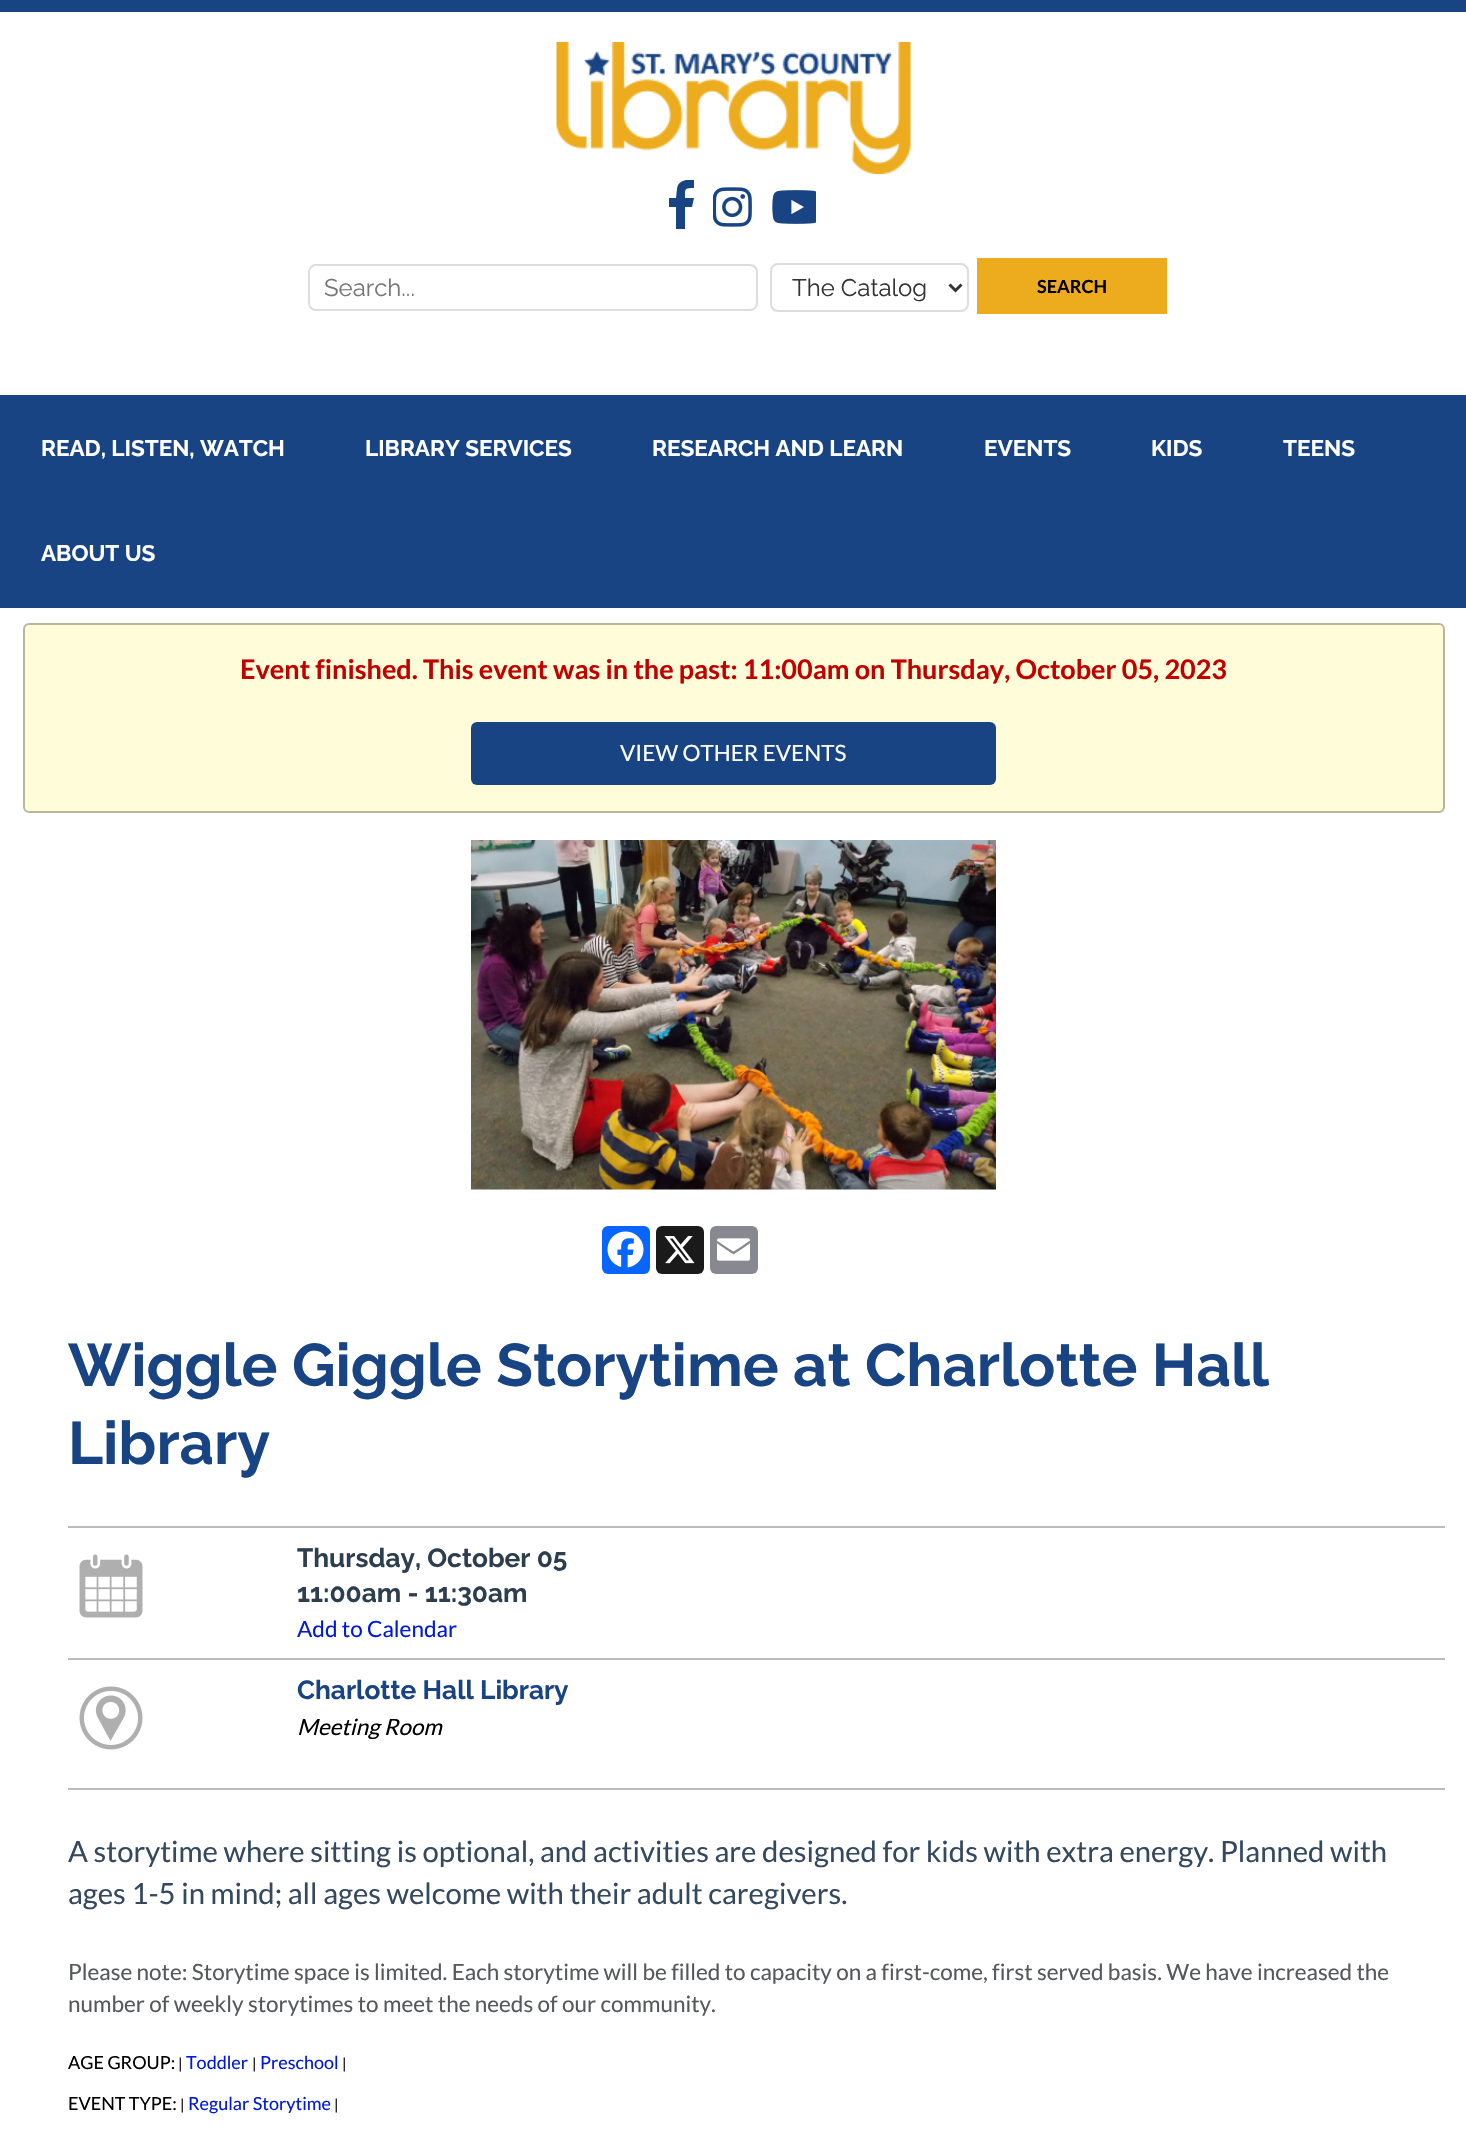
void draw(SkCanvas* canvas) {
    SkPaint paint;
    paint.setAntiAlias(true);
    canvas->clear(0xFFFFFFFF);
    paint.setColor(0xFF194483);
    canvas->drawRect(SkRect::MakeXYWH(0, 0, 1466, 12), paint);
    canvas->drawImageRect(SkImages::DeferredFromEncodedData(SkData::MakeFromFileName("img1.png")), SkRect::MakeXYWH(556, 42, 355, 132), SkSamplingOptions());
    canvas->save();
    canvas->clipRect(SkRect::MakeXYWH(669, 180, 26, 50));
    canvas->drawPath(SkPathBuilder().moveTo(676, 229).lineTo(676, 207).lineTo(669, 207).lineTo(669, 198).lineTo(676, 198).lineTo(677, 189).cubicTo(678, 180, 687, 179, 694, 180).lineTo(694, 188).cubicTo(684, 188, 685, 189, 685, 198).lineTo(694, 198).lineTo(692, 207).lineTo(685, 207).lineTo(685, 229).detach(), paint);
    canvas->restore();
    canvas->drawImageRect(SkImages::DeferredFromEncodedData(SkData::MakeFromFileName("img2.png")), SkRect::MakeXYWH(713, 187, 39, 40), SkSamplingOptions());
    canvas->drawImageRect(SkImages::DeferredFromEncodedData(SkData::MakeFromFileName("img3.png")), SkRect::MakeXYWH(772, 190, 44, 34), SkSamplingOptions());
    paint.setStyle(SkPaint::kStroke_Style);
    paint.setStrokeWidth(2);
    paint.setColor(0xFFDDDDDD);
    canvas->drawRoundRect(SkRect::MakeXYWH(309, 265, 448, 45), 7, 7, paint);
    SkFont font1(fontMgr->matchFamilyStyle("Raleway", SkFontStyle::Normal()), 24);
    font1.setSubpixel(true);
    paint.setStyle(SkPaint::kFill_Style);
    paint.setColor(0xFF757575);
    canvas->drawString("Search...", 324, 296, font1, paint);
    paint.setStyle(SkPaint::kStroke_Style);
    paint.setColor(0xFFDDDDDD);
    canvas->drawRoundRect(SkRect::MakeXYWH(771, 264, 197, 47), 7, 7, paint);
    paint.setStrokeWidth(3);
    paint.setColor(0xFF333333);
    canvas->drawPath(SkPathBuilder().moveTo(949.5f, 284.5f).lineTo(955.5f, 290.5f).lineTo(961.5f, 284.5f).detach(), paint);
    paint.setStyle(SkPaint::kFill_Style);
    canvas->drawString("The Catalog", 792, 296, font1, paint);
    paint.setColor(0xFFEDAC1E);
    canvas->drawRect(SkRect::MakeXYWH(977, 258, 190, 56), paint);
    SkFont font2(fontMgr->matchFamilyStyle("Lato", SkFontStyle::Bold()), 18);
    font2.setSubpixel(true);
    paint.setColor(0xFF000000);
    canvas->drawString("SEARCH", 1037, 293, font2, paint);
    paint.setColor(0xFF194483);
    canvas->drawRect(SkRect::MakeXYWH(0, 395, 1466, 213), paint);
    SkFont font3(fontMgr->matchFamilyStyle("Raleway", SkFontStyle::Bold()), 22.5f);
    font3.setSubpixel(true);
    paint.setColor(0xFFFFFFFF);
    canvas->drawString("READ, LISTEN, WATCH", 41, 456, font3, paint);
    canvas->drawString("LIBRARY SERVICES", 365, 456, font3, paint);
    canvas->drawString("RESEARCH AND LEARN", 652, 456, font3, paint);
    canvas->drawString("EVENTS", 984, 456, font3, paint);
    canvas->drawString("KIDS", 1151, 456, font3, paint);
    canvas->drawString("TEENS", 1283, 456, font3, paint);
    canvas->drawString("ABOUT US", 41, 561, font3, paint);
    paint.setColor(0xFFFFFDD9);
    canvas->drawRoundRect(SkRect::MakeXYWH(24, 624, 1420, 188), 5, 5, paint);
    paint.setStyle(SkPaint::kStroke_Style);
    paint.setStrokeWidth(2);
    paint.setColor(0xFFB8B79A);
    canvas->drawRoundRect(SkRect::MakeXYWH(24, 624, 1420, 188), 5, 5, paint);
    SkFont font4(fontMgr->matchFamilyStyle("Lato", SkFontStyle::Bold()), 27);
    font4.setSubpixel(true);
    paint.setStyle(SkPaint::kFill_Style);
    paint.setColor(0xFFC10000);
    canvas->drawString("Event finished. This event was in the past: 11:00am on Thursday, October 05, 2023", 240, 679, font4, paint);
    paint.setColor(0xFF194483);
    canvas->drawRoundRect(SkRect::MakeXYWH(471, 722, 525, 63), 6, 6, paint);
    SkFont font5(fontMgr->matchFamilyStyle("Lato", SkFontStyle::Normal()), 22.5f);
    font5.setSubpixel(true);
    paint.setColor(0xFFFFFFFF);
    canvas->drawString("VIEW OTHER EVENTS", 620, 761, font5, paint);
    canvas->drawImageRect(SkImages::DeferredFromEncodedData(SkData::MakeFromFileName("img4.png")), SkRect::MakeXYWH(471, 840, 525, 350), SkSamplingOptions());
    paint.setColor(0xFF0866FF);
    canvas->drawRoundRect(SkRect::MakeXYWH(602, 1226, 48, 48), 6, 6, paint);
    canvas->drawImageRect(SkImages::DeferredFromEncodedData(SkData::MakeFromFileName("img5.png")), SkRect::MakeXYWH(607, 1231, 37, 37), SkSamplingOptions());
    paint.setColor(0xFF1A1A1A);
    canvas->drawRoundRect(SkRect::MakeXYWH(656, 1226, 48, 48), 6, 6, paint);
    canvas->drawImageRect(SkImages::DeferredFromEncodedData(SkData::MakeFromFileName("img6.png")), SkRect::MakeXYWH(664, 1236, 31, 28), SkSamplingOptions());
    paint.setColor(0xFF888990);
    canvas->drawRoundRect(SkRect::MakeXYWH(710, 1226, 48, 48), 6, 6, paint);
    canvas->drawImageRect(SkImages::DeferredFromEncodedData(SkData::MakeFromFileName("img7.png")), SkRect::MakeXYWH(717, 1238, 33, 23), SkSamplingOptions());
    SkFont font6(fontMgr->matchFamilyStyle("Raleway", SkFontStyle::Bold()), 60);
    font6.setSubpixel(true);
    paint.setColor(0xFF194483);
    canvas->drawString("Wiggle Giggle Storytime at Charlotte Hall", 68, 1386, font6, paint);
    canvas->drawString("Library", 68, 1464, font6, paint);
    paint.setColor(0xFFBBBBBB);
    canvas->drawRect(SkRect::MakeXYWH(68, 1526, 1377, 2), paint);
    canvas->drawImageRect(SkImages::DeferredFromEncodedData(SkData::MakeFromFileName("img8.png")), SkRect::MakeXYWH(79, 1554, 64, 64), SkSamplingOptions());
    SkFont font7(fontMgr->matchFamilyStyle("Raleway", SkFontStyle::Bold()), 26.25f);
    font7.setSubpixel(true);
    paint.setColor(0xFF2D3E4F);
    canvas->drawString("Thursday, October 05", 297, 1567, font7, paint);
    canvas->drawString("11:00am - 11:30am", 297, 1602, font7, paint);
    paint.setColor(0xFF0019D8);
    canvas->drawString("Add to Calendar", 297, 1637, font5, paint);
    paint.setColor(0xFFBBBBBB);
    canvas->drawRect(SkRect::MakeXYWH(68, 1658, 1377, 2), paint);
    canvas->drawImageRect(SkImages::DeferredFromEncodedData(SkData::MakeFromFileName("img9.png")), SkRect::MakeXYWH(79, 1686, 64, 64), SkSamplingOptions());
    paint.setColor(0xFF194483);
    canvas->drawString("Charlotte Hall Library", 297, 1699, font7, paint);
    SkFont font8(fontMgr->matchFamilyStyle("Lato", SkFontStyle::Italic()), 22.5f);
    font8.setSubpixel(true);
    paint.setColor(0xFF000000);
    canvas->drawString("Meeting Room", 297, 1735, font8, paint);
    paint.setColor(0xFFBBBBBB);
    canvas->drawRect(SkRect::MakeXYWH(68, 1788, 1377, 2), paint);
    SkFont font9(fontMgr->matchFamilyStyle("Lato", SkFontStyle::Normal()), 29.25f);
    font9.setSubpixel(true);
    paint.setColor(0xFF34485E);
    canvas->drawString("A storytime where sitting is optional, and activities are designed for kids with extra energy. Planned with", 68, 1862, font9, paint);
    canvas->drawString("ages 1-5 in mind; all ages welcome with their adult caregivers.", 68, 1904, font9, paint);
    paint.setColor(0xFF56585B);
    canvas->drawString("Please note: Storytime space is limited. Each storytime will be filled to capacity on a first-come, first served basis. We have increased the", 68, 1980, font5, paint);
    canvas->drawString("number of weekly storytimes to meet the needs of our community.", 68, 2012, font5, paint);
    SkFont font10(fontMgr->matchFamilyStyle("Lato", SkFontStyle::Normal()), 18);
    font10.setSubpixel(true);
    paint.setColor(0xFF000000);
    canvas->drawString("AGE GROUP:", 68, 2069, font10, paint);
    SkFont font11(fontMgr->matchFamilyStyle("Lato", SkFontStyle::Normal()), 15);
    font11.setSubpixel(true);
    canvas->drawString("|", 178, 2069, font11, paint);
    paint.setColor(0xFF0019D8);
    canvas->drawString("Toddler", 186, 2069, font10, paint);
    paint.setColor(0xFF000000);
    canvas->drawString("|", 252, 2069, font11, paint);
    paint.setColor(0xFF0019D8);
    canvas->drawString("Preschool", 260, 2069, font10, paint);
    paint.setColor(0xFF000000);
    canvas->drawString("|", 342, 2069, font11, paint);
    canvas->drawString("EVENT TYPE:", 68, 2110, font10, paint);
    canvas->drawString("|", 180, 2110, font11, paint);
    paint.setColor(0xFF0019D8);
    canvas->drawString("Regular Storytime", 188, 2110, font10, paint);
    paint.setColor(0xFF000000);
    canvas->drawString("|", 334, 2110, font11, paint);
}
